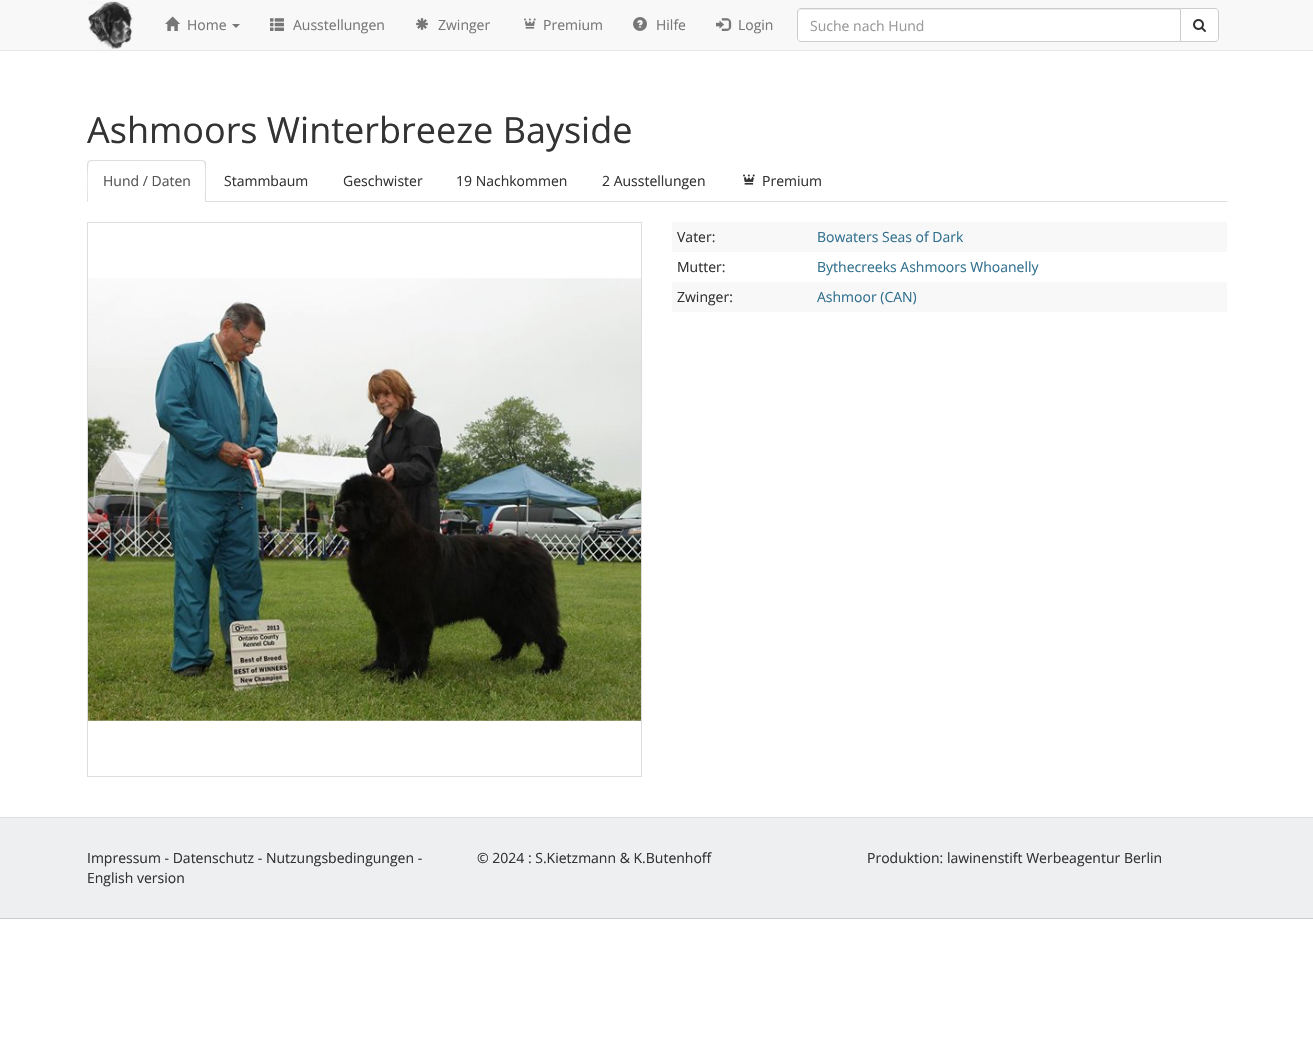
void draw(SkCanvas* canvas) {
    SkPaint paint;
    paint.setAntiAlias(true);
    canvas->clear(0xFFFFFFFF);
    paint.setColor(0xFFF8F8F8);
    canvas->drawRect(SkRect::MakeXYWH(0, 0, 1313, 50), paint);
    paint.setColor(0xFFE7E7E7);
    canvas->drawRect(SkRect::MakeXYWH(0, 50, 1313, 1), paint);
    canvas->drawImageRect(SkImages::DeferredFromEncodedData(SkData::MakeFromFileName("img1.png")), SkRect::MakeXYWH(88, 1, 45, 49), SkSamplingOptions());
    canvas->drawImageRect(SkImages::DeferredFromEncodedData(SkData::MakeFromFileName("img2.png")), SkRect::MakeXYWH(165, 16, 15, 15), SkSamplingOptions());
    SkFont font1(fontMgr->matchFamilyStyle("Open Sans", SkFontStyle::Normal()), 14);
    font1.setSubpixel(true);
    paint.setColor(0xFF777777);
    canvas->drawString("Home", 187, 30, font1, paint);
    canvas->drawPath(SkPathBuilder().moveTo(232, 24).lineTo(240, 24).lineTo(236, 28).close().detach(), paint);
    canvas->drawImageRect(SkImages::DeferredFromEncodedData(SkData::MakeFromFileName("img3.png")), SkRect::MakeXYWH(270, 18, 14, 13), SkSamplingOptions());
    canvas->drawString("Ausstellungen", 293, 30, font1, paint);
    canvas->drawImageRect(SkImages::DeferredFromEncodedData(SkData::MakeFromFileName("img4.png")), SkRect::MakeXYWH(416, 18, 12, 12), SkSamplingOptions());
    canvas->drawString("Zwinger", 438, 30, font1, paint);
    canvas->drawImageRect(SkImages::DeferredFromEncodedData(SkData::MakeFromFileName("img5.png")), SkRect::MakeXYWH(524, 18, 12, 11), SkSamplingOptions());
    canvas->drawString("Premium", 543, 30, font1, paint);
    canvas->drawImageRect(SkImages::DeferredFromEncodedData(SkData::MakeFromFileName("img6.png")), SkRect::MakeXYWH(633, 17, 14, 14), SkSamplingOptions());
    canvas->drawString("Hilfe", 656, 30, font1, paint);
    canvas->drawImageRect(SkImages::DeferredFromEncodedData(SkData::MakeFromFileName("img7.png")), SkRect::MakeXYWH(716, 18, 16, 13), SkSamplingOptions());
    canvas->drawString("Login", 738, 30, font1, paint);
    paint.setColor(0xFFFFFFFF);
    canvas->drawPath(SkPathBuilder().moveTo(1180.5f, 8.5f).lineTo(1215, 8.5f).cubicTo(1217, 8.5f, 1218.5f, 10, 1218.5f, 12).lineTo(1218.5f, 38).cubicTo(1218.5f, 40, 1217, 41.5f, 1215, 41.5f).lineTo(1180.5f, 41.5f).close().detach(), paint);
    paint.setStyle(SkPaint::kStroke_Style);
    paint.setStrokeWidth(1);
    paint.setColor(0xFFCCCCCC);
    canvas->drawPath(SkPathBuilder().moveTo(1180.5f, 8.5f).lineTo(1215, 8.5f).cubicTo(1217, 8.5f, 1218.5f, 10, 1218.5f, 12).lineTo(1218.5f, 38).cubicTo(1218.5f, 40, 1217, 41.5f, 1215, 41.5f).lineTo(1180.5f, 41.5f).close().detach(), paint);
    paint.setStyle(SkPaint::kFill_Style);
    paint.setColor(0xFFFFFFFF);
    canvas->drawPath(SkPathBuilder().moveTo(801, 8).lineTo(1181, 8).lineTo(1181, 42).lineTo(801, 42).cubicTo(799, 42, 797, 40, 797, 38).lineTo(797, 12).cubicTo(797, 10, 799, 8, 801, 8).close().detach(), paint);
    paint.setColor(0xFFECECEC);
    canvas->drawPath(SkPathBuilder().moveTo(801, 10).lineTo(1180, 10).lineTo(1180, 9).lineTo(801, 9).cubicTo(799, 9, 798, 10, 798, 12).lineTo(798, 13).cubicTo(798, 11, 799, 10, 801, 10).close().detach(), paint);
    paint.setStyle(SkPaint::kStroke_Style);
    paint.setColor(0xFFCCCCCC);
    canvas->drawPath(SkPathBuilder().moveTo(801, 8.5f).lineTo(1180.5f, 8.5f).lineTo(1180.5f, 41.5f).lineTo(801, 41.5f).cubicTo(799, 41.5f, 797.5f, 40, 797.5f, 38).lineTo(797.5f, 12).cubicTo(797.5f, 10, 799, 8.5f, 801, 8.5f).close().detach(), paint);
    paint.setStyle(SkPaint::kFill_Style);
    paint.setColor(0xFF999999);
    canvas->drawString("Suche nach Hund", 810, 31, font1, paint);
    canvas->drawImageRect(SkImages::DeferredFromEncodedData(SkData::MakeFromFileName("img8.png")), SkRect::MakeXYWH(1193, 19, 13, 13), SkSamplingOptions());
    SkFont font2(fontMgr->matchFamilyStyle("Open Sans", SkFontStyle::Normal()), 36);
    font2.setSubpixel(true);
    paint.setColor(0xFF333333);
    canvas->drawString("Ashmoors Winterbreeze Bayside", 87, 143, font2, paint);
    paint.setColor(0xFFDDDDDD);
    canvas->drawRect(SkRect::MakeXYWH(206, 201, 1021, 1), paint);
    canvas->drawPath(SkPathBuilder().moveTo(91, 160).lineTo(88, 161).lineTo(89, 162).lineTo(91, 161).lineTo(202, 161).lineTo(204, 162).lineTo(205, 161).lineTo(202, 160).close().detach(), paint);
    canvas->drawPath(SkPathBuilder().moveTo(206, 202).lineTo(206, 164).cubicTo(206, 163, 206, 162, 205, 161).lineTo(204, 162).cubicTo(206, 164, 205, 196, 205, 201).close().detach(), paint);
    canvas->drawPath(SkPathBuilder().moveTo(87, 202).lineTo(88, 201).cubicTo(88, 196, 87, 164, 89, 162).lineTo(88, 161).lineTo(87, 164).close().detach(), paint);
    paint.setColor(0xFF555555);
    canvas->drawString("Hund / Daten", 103, 186, font1, paint);
    paint.setColor(0xFF333333);
    canvas->drawString("Stammbaum", 224, 186, font1, paint);
    canvas->drawString("Geschwister", 343, 186, font1, paint);
    canvas->drawString("19 Nachkommen", 456, 186, font1, paint);
    canvas->drawString("2 Ausstellungen", 602, 186, font1, paint);
    canvas->drawImageRect(SkImages::DeferredFromEncodedData(SkData::MakeFromFileName("img9.png")), SkRect::MakeXYWH(743, 174, 12, 11), SkSamplingOptions());
    canvas->drawString("Premium", 762, 186, font1, paint);
    paint.setStyle(SkPaint::kStroke_Style);
    paint.setColor(0xFFDDDDDD);
    canvas->drawRect(SkRect::MakeXYWH(87.5f, 222.5f, 554, 554), paint);
    canvas->drawImageRect(SkImages::DeferredFromEncodedData(SkData::MakeFromFileName("img10.png")), SkRect::MakeXYWH(88, 278, 553, 444), SkSamplingOptions());
    paint.setStyle(SkPaint::kFill_Style);
    paint.setColor(0xFFF8F8F8);
    canvas->drawRect(SkRect::MakeXYWH(672, 222, 555, 30), paint);
    paint.setColor(0xFF333333);
    canvas->drawString("Vater:", 677, 242, font1, paint);
    paint.setColor(0xFF31708F);
    canvas->drawString("Bowaters Seas of Dark", 817, 242, font1, paint);
    paint.setColor(0xFF333333);
    canvas->drawString("Mutter:", 677, 272, font1, paint);
    paint.setColor(0xFF31708F);
    canvas->drawString("Bythecreeks Ashmoors Whoanelly", 817, 272, font1, paint);
    paint.setColor(0xFFF8F8F8);
    canvas->drawRect(SkRect::MakeXYWH(672, 282, 555, 30), paint);
    paint.setColor(0xFF333333);
    canvas->drawString("Zwinger:", 677, 302, font1, paint);
    paint.setColor(0xFF31708F);
    canvas->drawString("Ashmoor (CAN)", 817, 302, font1, paint);
    paint.setColor(0xFFEDEFF1);
    canvas->drawRect(SkRect::MakeXYWH(0, 818, 1313, 100), paint);
    paint.setColor(0xFFDDDDDD);
    canvas->drawRect(SkRect::MakeXYWH(0, 817, 1313, 1), paint);
    paint.setColor(0xFFCCCCCC);
    canvas->drawRect(SkRect::MakeXYWH(0, 918, 1313, 1), paint);
    paint.setColor(0xFF333333);
    canvas->drawString("Impressum - Datenschutz - Nutzungsbedingungen -", 87, 863, font1, paint);
    canvas->drawString("English version", 87, 883, font1, paint);
    canvas->drawString("© 2024 : S.Kietzmann & K.Butenhoff", 477, 863, font1, paint);
    canvas->drawString("Produktion: lawinenstift Werbeagentur Berlin", 867, 863, font1, paint);
}
